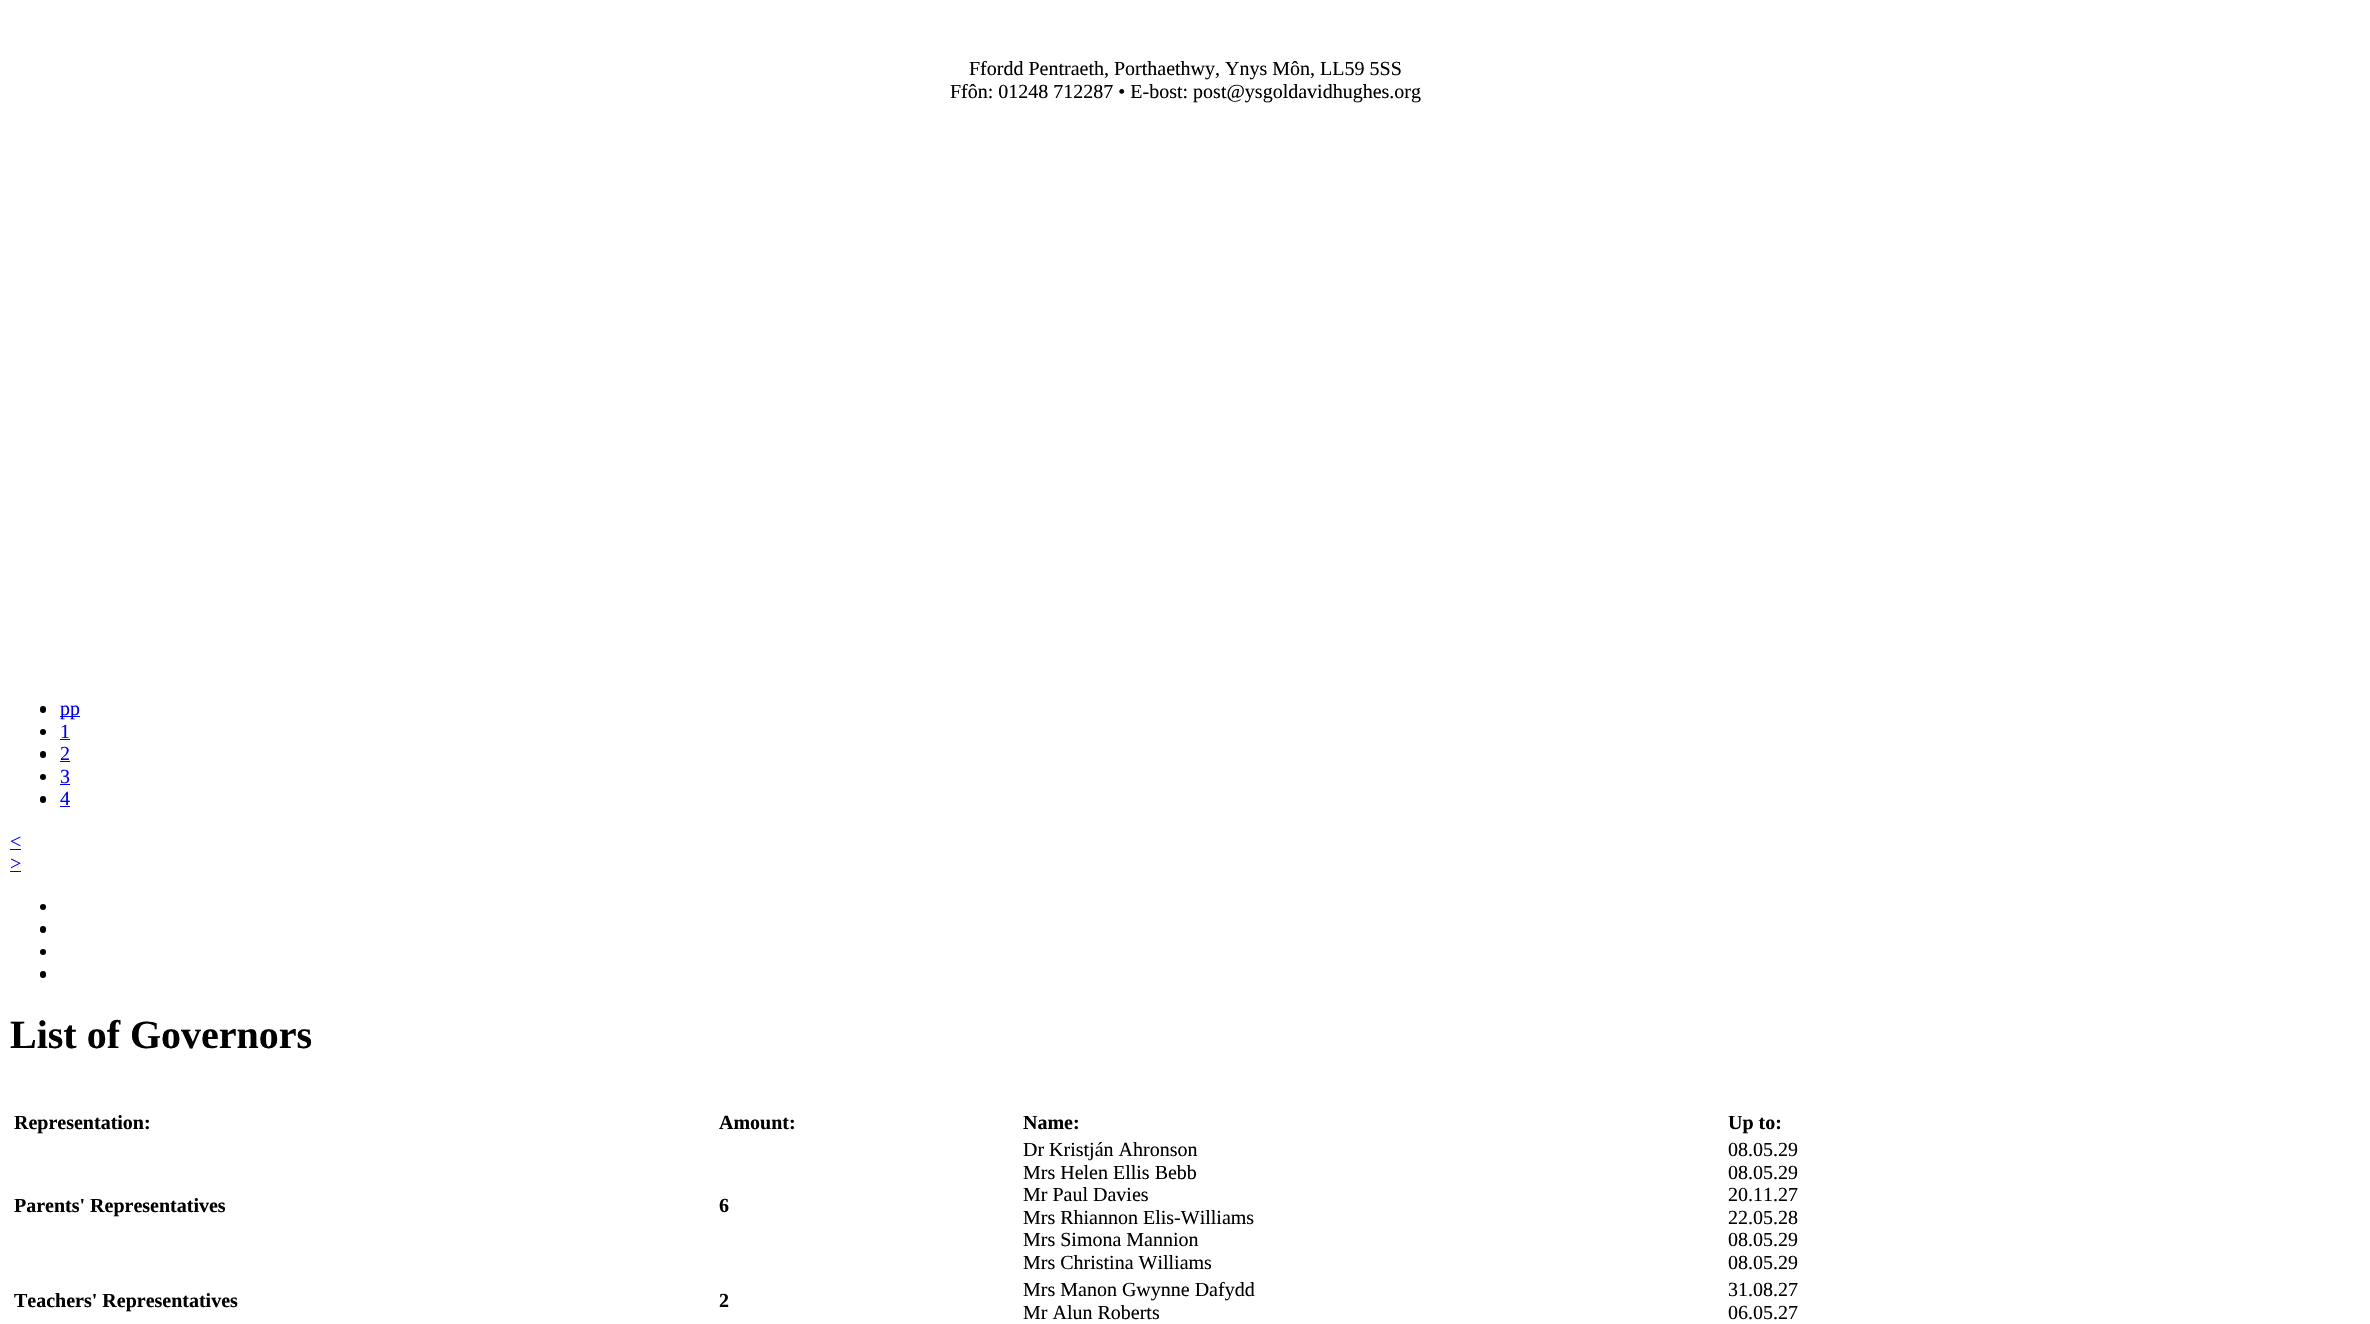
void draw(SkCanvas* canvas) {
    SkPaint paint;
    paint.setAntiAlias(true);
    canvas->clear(0xFFFFFFFF);
    SkFont font1(fontMgr->matchFamilyStyle("Liberation Serif", SkFontStyle::Normal()), 20);
    font1.setSubpixel(true);
    paint.setColor(0xFF000000);
    canvas->drawString("Ffordd Pentraeth, Porthaethwy, Ynys Môn, LL59 5SS", 969, 75, font1, paint);
    canvas->drawString("Ffôn: 01248 712287 • E-bost: post@ysgoldavidhughes.org", 950, 98, font1, paint);
    canvas->drawRoundRect(SkRect::MakeXYWH(40, 706, 6, 7), 3, 3, paint);
    paint.setColor(0xFF0000EE);
    canvas->drawRect(SkRect::MakeXYWH(60, 716, 20, 1), paint);
    canvas->drawString("pp", 60, 715, font1, paint);
    paint.setColor(0xFF000000);
    canvas->drawCircle(43, 732, 3, paint);
    paint.setColor(0xFF0000EE);
    canvas->drawString("1", 60, 738, font1, paint);
    canvas->drawRect(SkRect::MakeXYWH(60, 739, 10, 1), paint);
    paint.setColor(0xFF000000);
    canvas->drawRoundRect(SkRect::MakeXYWH(40, 751, 6, 7), 3, 3, paint);
    paint.setColor(0xFF0000EE);
    canvas->drawString("2", 60, 760, font1, paint);
    canvas->drawRect(SkRect::MakeXYWH(60, 761, 10, 1), paint);
    paint.setColor(0xFF000000);
    canvas->drawCircle(43, 777, 3, paint);
    paint.setColor(0xFF0000EE);
    canvas->drawString("3", 60, 783, font1, paint);
    canvas->drawRect(SkRect::MakeXYWH(60, 784, 10, 1), paint);
    paint.setColor(0xFF000000);
    canvas->drawRoundRect(SkRect::MakeXYWH(40, 796, 6, 7), 3, 3, paint);
    paint.setColor(0xFF0000EE);
    canvas->drawString("4", 60, 805, font1, paint);
    canvas->drawRect(SkRect::MakeXYWH(60, 806, 10, 1), paint);
    canvas->drawString("<", 10, 848, font1, paint);
    canvas->drawRect(SkRect::MakeXYWH(10, 849, 11, 1), paint);
    canvas->drawString(">", 10, 870, font1, paint);
    canvas->drawRect(SkRect::MakeXYWH(10, 871, 11, 1), paint);
    paint.setColor(0xFF000000);
    canvas->drawCircle(43, 907, 3, paint);
    canvas->drawRoundRect(SkRect::MakeXYWH(40, 926, 6, 7), 3, 3, paint);
    canvas->drawCircle(43, 952, 3, paint);
    canvas->drawRoundRect(SkRect::MakeXYWH(40, 971, 6, 7), 3, 3, paint);
    SkFont font2(fontMgr->matchFamilyStyle("Liberation Serif", SkFontStyle::Bold()), 40);
    font2.setSubpixel(true);
    canvas->drawString("List of Governors", 10, 1048, font2, paint);
    SkFont font3(fontMgr->matchFamilyStyle("Liberation Serif", SkFontStyle::Bold()), 20);
    font3.setSubpixel(true);
    canvas->drawString("Representation:", 14, 1129, font3, paint);
    canvas->drawString("Amount:", 719, 1129, font3, paint);
    canvas->drawString("Name:", 1023, 1129, font3, paint);
    canvas->drawString("Up to:", 1728, 1129, font3, paint);
    canvas->drawString("Parents' Representatives", 14, 1212, font3, paint);
    canvas->drawString("6", 719, 1212, font3, paint);
    canvas->drawString("Dr Kristján Ahronson", 1023, 1156, font1, paint);
    canvas->drawString("Mrs Helen Ellis Bebb", 1023, 1179, font1, paint);
    canvas->drawString("Mr Paul Davies", 1023, 1201, font1, paint);
    canvas->drawString("Mrs Rhiannon Elis-Williams", 1023, 1224, font1, paint);
    canvas->drawString("Mrs Simona Mannion", 1023, 1246, font1, paint);
    canvas->drawString("Mrs Christina Williams", 1023, 1269, font1, paint);
    canvas->drawString("08.05.29", 1728, 1156, font1, paint);
    canvas->drawString("08.05.29", 1728, 1179, font1, paint);
    canvas->drawString("20.11.27", 1728, 1201, font1, paint);
    canvas->drawString("22.05.28", 1728, 1224, font1, paint);
    canvas->drawString("08.05.29", 1728, 1246, font1, paint);
    canvas->drawString("08.05.29", 1728, 1269, font1, paint);
    canvas->drawString("Teachers' Representatives", 14, 1307, font3, paint);
    canvas->drawString("2", 719, 1307, font3, paint);
    canvas->drawString("Mrs Manon Gwynne Dafydd", 1023, 1296, font1, paint);
    canvas->drawString("Mr Alun Roberts", 1023, 1319, font1, paint);
    canvas->drawString("31.08.27", 1728, 1296, font1, paint);
    canvas->drawString("06.05.27", 1728, 1319, font1, paint);
}
